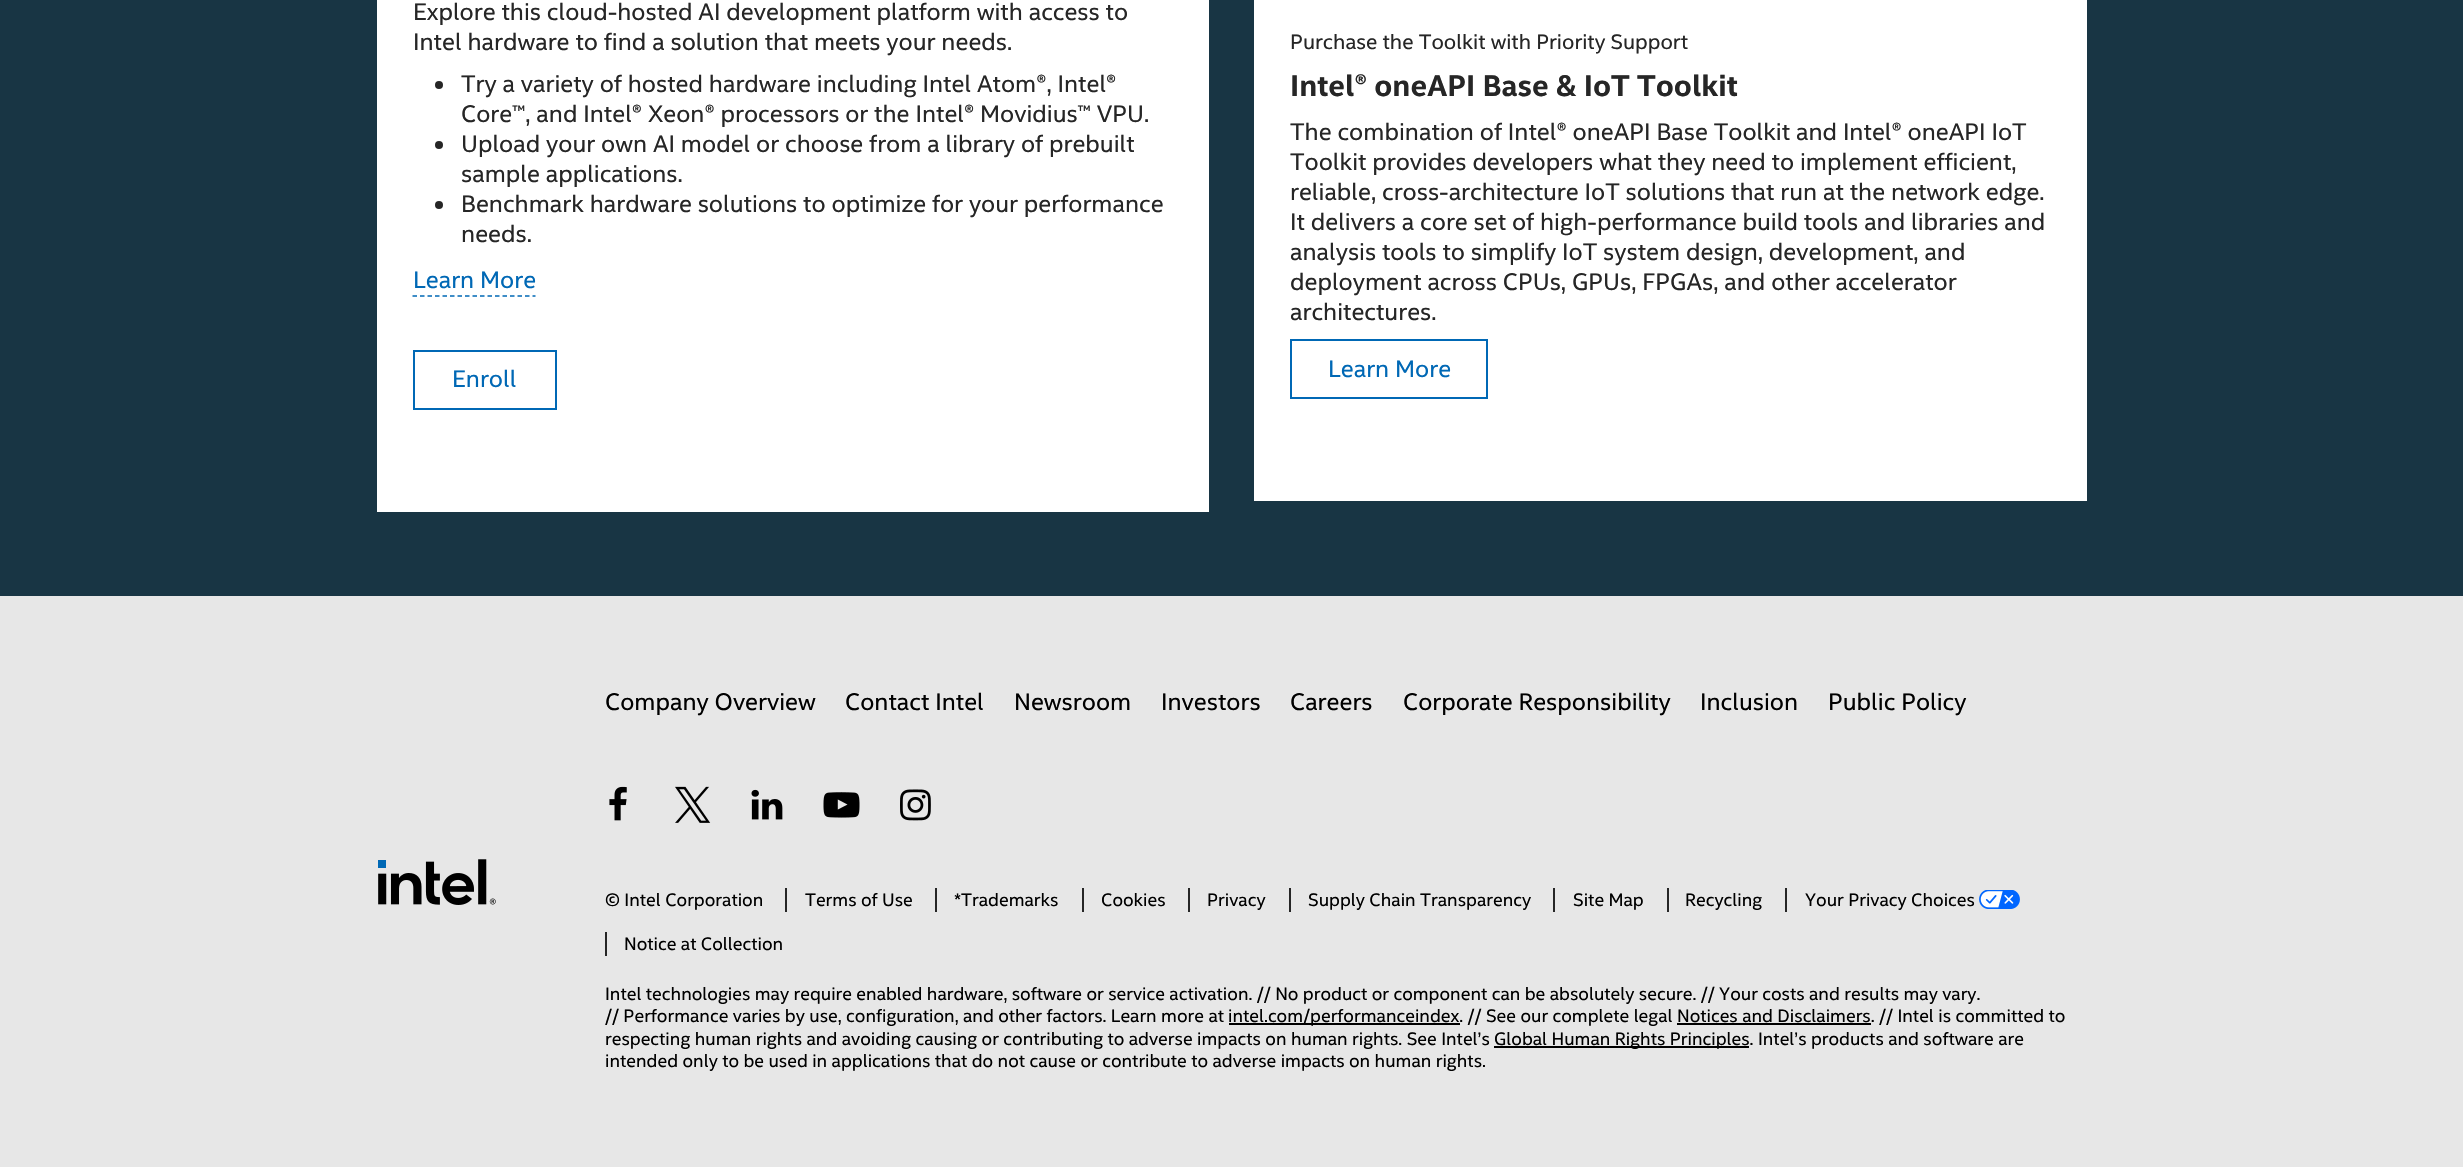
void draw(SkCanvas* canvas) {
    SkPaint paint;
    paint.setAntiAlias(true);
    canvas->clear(0xFF183544);
    paint.setColor(0xFFFFFFFF);
    canvas->drawRect(SkRect::MakeXYWH(377, 0, 832, 512), paint);
    SkFont font1(fontMgr->matchFamilyStyle("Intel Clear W", SkFontStyle::Normal()), 24);
    font1.setSubpixel(true);
    paint.setColor(0xFF262626);
    canvas->drawString("Explore this cloud-hosted AI development platform with access to", 413, 20, font1, paint);
    canvas->drawString("Intel hardware to find a solution that meets your needs.", 413, 50, font1, paint);
    canvas->drawCircle(439, 85, 4, paint);
    canvas->drawString("Try a variety of hosted hardware including Intel Atom®, Intel®", 461, 92, font1, paint);
    canvas->drawString("Core™, and Intel® Xeon® processors or the Intel® Movidius™ VPU.", 461, 122, font1, paint);
    canvas->drawCircle(439, 145, 4, paint);
    canvas->drawString("Upload your own AI model or choose from a library of prebuilt", 461, 152, font1, paint);
    canvas->drawString("sample applications.", 461, 182, font1, paint);
    canvas->drawCircle(439, 205, 4, paint);
    canvas->drawString("Benchmark hardware solutions to optimize for your performance", 461, 212, font1, paint);
    canvas->drawString("needs.", 461, 242, font1, paint);
    paint.setColor(0xFF0068B5);
    canvas->drawString("Learn More", 413, 288, font1, paint);
    paint.setStyle(SkPaint::kStroke_Style);
    paint.setStrokeWidth(1.5f);
    paint.setPathEffect(SkDashPathEffect::Make({{4.5f, 3}}, 0));
    canvas->drawPath(SkPathBuilder().moveTo(412.5f, 296).lineTo(535.5f, 296).detach(), paint);
    paint.setPathEffect(nullptr);
    paint.setStrokeWidth(2);
    canvas->drawRect(SkRect::MakeXYWH(414, 351, 142, 58), paint);
    paint.setStyle(SkPaint::kFill_Style);
    canvas->drawString("Enroll", 452, 387, font1, paint);
    paint.setColor(0xFFFFFFFF);
    canvas->drawRect(SkRect::MakeXYWH(1254, 0, 833, 501), paint);
    SkFont font2(fontMgr->matchFamilyStyle("Intel Clear W", SkFontStyle::Normal()), 21);
    font2.setSubpixel(true);
    paint.setColor(0xFF262626);
    canvas->drawString("Purchase the Toolkit with Priority Support", 1290, 49, font2, paint);
    SkFont font3(fontMgr->matchFamilyStyle("Intel Clear W", SkFontStyle::Bold()), 30);
    font3.setSubpixel(true);
    canvas->drawString("Intel® oneAPI Base & IoT Toolkit", 1290, 96, font3, paint);
    canvas->drawString("The combination of Intel® oneAPI Base Toolkit and Intel® oneAPI IoT", 1290, 140, font1, paint);
    canvas->drawString("Toolkit provides developers what they need to implement efficient,", 1290, 170, font1, paint);
    canvas->drawString("reliable, cross-architecture IoT solutions that run at the network edge.", 1290, 200, font1, paint);
    canvas->drawString("It delivers a core set of high-performance build tools and libraries and", 1290, 230, font1, paint);
    canvas->drawString("analysis tools to simplify IoT system design, development, and", 1290, 260, font1, paint);
    canvas->drawString("deployment across CPUs, GPUs, FPGAs, and other accelerator", 1290, 290, font1, paint);
    canvas->drawString("architectures.", 1290, 320, font1, paint);
    paint.setStyle(SkPaint::kStroke_Style);
    paint.setColor(0xFF0068B5);
    canvas->drawRect(SkRect::MakeXYWH(1291, 340, 196, 58), paint);
    paint.setStyle(SkPaint::kFill_Style);
    canvas->drawString("Learn More", 1328, 377, font1, paint);
    paint.setColor(0xFFE7E7E7);
    canvas->drawRect(SkRect::MakeXYWH(0, 596, 2463, 571), paint);
    canvas->drawImageRect(SkImages::DeferredFromEncodedData(SkData::MakeFromFileName("img1.png")), SkRect::MakeXYWH(378, 859, 118, 46), SkSamplingOptions());
    paint.setColor(0xFF000000);
    canvas->drawString("Company Overview", 605, 710, font1, paint);
    canvas->drawString("Contact Intel", 845, 710, font1, paint);
    canvas->drawString("Newsroom", 1014, 710, font1, paint);
    canvas->drawString("Investors", 1161, 710, font1, paint);
    canvas->drawString("Careers", 1290, 710, font1, paint);
    canvas->drawString("Corporate Responsibility", 1403, 710, font1, paint);
    canvas->drawString("Inclusion", 1700, 710, font1, paint);
    canvas->drawString("Public Policy", 1828, 710, font1, paint);
    canvas->drawImageRect(SkImages::DeferredFromEncodedData(SkData::MakeFromFileName("img2.png")), SkRect::MakeXYWH(609, 786, 18, 35), SkSamplingOptions());
    canvas->drawImageRect(SkImages::DeferredFromEncodedData(SkData::MakeFromFileName("img3.png")), SkRect::MakeXYWH(675, 786, 36, 37), SkSamplingOptions());
    canvas->drawImageRect(SkImages::DeferredFromEncodedData(SkData::MakeFromFileName("img4.png")), SkRect::MakeXYWH(751, 789, 32, 31), SkSamplingOptions());
    canvas->drawImageRect(SkImages::DeferredFromEncodedData(SkData::MakeFromFileName("img5.png")), SkRect::MakeXYWH(823, 792, 37, 26), SkSamplingOptions());
    canvas->drawImageRect(SkImages::DeferredFromEncodedData(SkData::MakeFromFileName("img6.png")), SkRect::MakeXYWH(900, 789, 31, 32), SkSamplingOptions());
    SkFont font4(fontMgr->matchFamilyStyle("Intel Clear W", SkFontStyle::Normal()), 18);
    font4.setSubpixel(true);
    canvas->drawString("© Intel Corporation", 605, 906, font4, paint);
    canvas->drawString("Terms of Use", 805, 906, font4, paint);
    paint.setColor(0xFF262626);
    canvas->drawRect(SkRect::MakeXYWH(785, 888, 2, 24), paint);
    paint.setColor(0xFF000000);
    canvas->drawString("*Trademarks", 954, 906, font4, paint);
    paint.setColor(0xFF262626);
    canvas->drawRect(SkRect::MakeXYWH(935, 888, 2, 24), paint);
    paint.setColor(0xFF000000);
    canvas->drawString("Cookies", 1101, 906, font4, paint);
    paint.setColor(0xFF262626);
    canvas->drawRect(SkRect::MakeXYWH(1082, 888, 2, 24), paint);
    paint.setColor(0xFF000000);
    canvas->drawString("Privacy", 1207, 906, font4, paint);
    paint.setColor(0xFF262626);
    canvas->drawRect(SkRect::MakeXYWH(1188, 888, 2, 24), paint);
    paint.setColor(0xFF000000);
    canvas->drawString("Supply Chain Transparency", 1308, 906, font4, paint);
    paint.setColor(0xFF262626);
    canvas->drawRect(SkRect::MakeXYWH(1289, 888, 2, 24), paint);
    paint.setColor(0xFF000000);
    canvas->drawString("Site Map", 1573, 906, font4, paint);
    paint.setColor(0xFF262626);
    canvas->drawRect(SkRect::MakeXYWH(1553, 888, 2, 24), paint);
    paint.setColor(0xFF000000);
    canvas->drawString("Recycling", 1685, 906, font4, paint);
    paint.setColor(0xFF262626);
    canvas->drawRect(SkRect::MakeXYWH(1667, 888, 2, 24), paint);
    canvas->drawRect(SkRect::MakeXYWH(1785, 888, 2, 24), paint);
    paint.setColor(0xFF000000);
    canvas->drawString("Your Privacy Choices", 1805, 906, font4, paint);
    canvas->drawImageRect(SkImages::DeferredFromEncodedData(SkData::MakeFromFileName("img7.png")), SkRect::MakeXYWH(1979, 890, 41, 19), SkSamplingOptions());
    canvas->drawString("Notice at Collection", 624, 950, font4, paint);
    paint.setColor(0xFF262626);
    canvas->drawRect(SkRect::MakeXYWH(605, 932, 2, 24), paint);
    paint.setColor(0xFF000000);
    canvas->drawString("Intel technologies may require enabled hardware, software or service activation. // No product or component can be absolutely secure. // Your costs and results may vary.", 605, 1000, font4, paint);
    canvas->drawString("// Performance varies by use, configuration, and other factors. Learn more at", 605, 1022, font4, paint);
    canvas->drawRect(SkRect::MakeXYWH(1229, 1023, 231, 2), paint);
    canvas->drawString("intel.com/performanceindex. // See our complete legal Notices and Disclaimers. // Intel is committed to", 1228, 1022, font4, paint);
    canvas->drawRect(SkRect::MakeXYWH(1677, 1023, 194, 2), paint);
    canvas->drawString("respecting human rights and avoiding causing or contributing to adverse impacts on human rights. See Intel’s", 605, 1045, font4, paint);
    canvas->drawRect(SkRect::MakeXYWH(1494, 1046, 255, 2), paint);
    canvas->drawString("Global Human Rights Principles. Intel’s products and software are", 1494, 1045, font4, paint);
    canvas->drawString("intended only to be used in applications that do not cause or contribute to adverse impacts on human rights.", 605, 1067, font4, paint);
}
